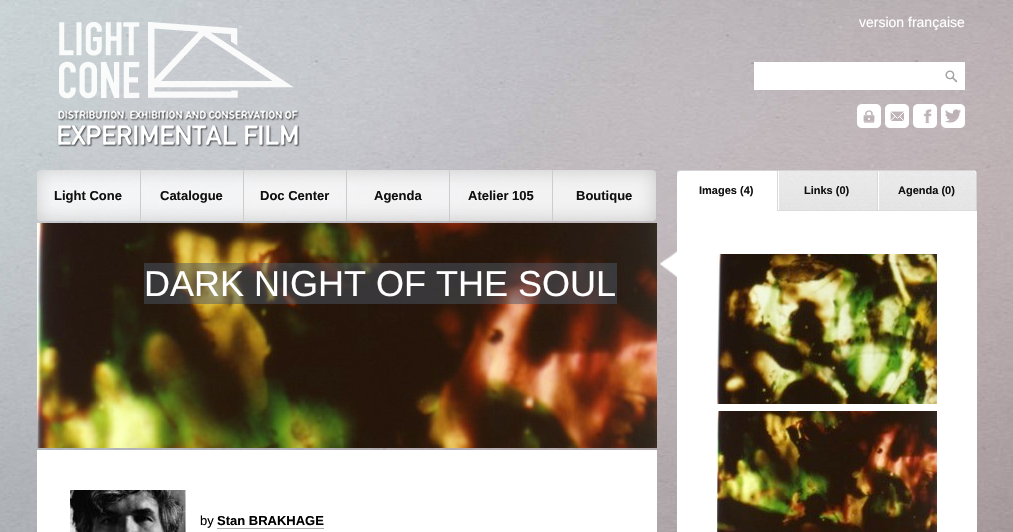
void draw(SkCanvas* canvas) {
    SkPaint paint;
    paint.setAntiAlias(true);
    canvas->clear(0xFFFFFFFF);
    canvas->drawImageRect(SkImages::DeferredFromEncodedData(SkData::MakeFromFileName("img1.png")), SkRect::MakeXYWH(0, 0, 1013, 532), SkSamplingOptions());
    canvas->drawImageRect(SkImages::DeferredFromEncodedData(SkData::MakeFromFileName("img2.png")), SkRect::MakeXYWH(57, 22, 243, 125), SkSamplingOptions());
    SkFont font1(fontMgr->matchFamilyStyle("Liberation Sans", SkFontStyle::Normal()), 14);
    font1.setSubpixel(true);
    paint.setColor(0xFFFFFFFF);
    canvas->drawString("version française", 859, 27, font1, paint);
    canvas->drawRect(SkRect::MakeXYWH(754, 62, 211, 28), paint);
    canvas->drawImageRect(SkImages::DeferredFromEncodedData(SkData::MakeFromFileName("img3.png")), SkRect::MakeXYWH(945, 70, 13, 13), SkSamplingOptions());
    canvas->drawImageRect(SkImages::DeferredFromEncodedData(SkData::MakeFromFileName("img4.png")), SkRect::MakeXYWH(857, 104, 24, 24), SkSamplingOptions());
    canvas->drawImageRect(SkImages::DeferredFromEncodedData(SkData::MakeFromFileName("img5.png")), SkRect::MakeXYWH(885, 104, 24, 24), SkSamplingOptions());
    canvas->drawImageRect(SkImages::DeferredFromEncodedData(SkData::MakeFromFileName("img6.png")), SkRect::MakeXYWH(913, 104, 24, 24), SkSamplingOptions());
    canvas->drawImageRect(SkImages::DeferredFromEncodedData(SkData::MakeFromFileName("img7.png")), SkRect::MakeXYWH(941, 104, 24, 24), SkSamplingOptions());
    canvas->drawImageRect(SkImages::DeferredFromEncodedData(SkData::MakeFromFileName("img8.png")), SkRect::MakeXYWH(37, 170, 103, 51), SkSamplingOptions());
    SkFont font2(fontMgr->matchFamilyStyle("Liberation Sans", SkFontStyle::Bold()), 13);
    font2.setSubpixel(true);
    paint.setColor(0xFF101010);
    canvas->drawString("Light Cone", 54, 200, font2, paint);
    canvas->drawImageRect(SkImages::DeferredFromEncodedData(SkData::MakeFromFileName("img9.png")), SkRect::MakeXYWH(141, 170, 102, 51), SkSamplingOptions());
    paint.setColor(0xFFCCCCCC);
    canvas->drawRect(SkRect::MakeXYWH(140, 170, 1, 51), paint);
    paint.setColor(0xFF101010);
    canvas->drawString("Catalogue", 160, 200, font2, paint);
    canvas->drawImageRect(SkImages::DeferredFromEncodedData(SkData::MakeFromFileName("img10.png")), SkRect::MakeXYWH(244, 170, 102, 51), SkSamplingOptions());
    paint.setColor(0xFFCCCCCC);
    canvas->drawRect(SkRect::MakeXYWH(243, 170, 1, 51), paint);
    paint.setColor(0xFF101010);
    canvas->drawString("Doc Center", 260, 200, font2, paint);
    canvas->drawImageRect(SkImages::DeferredFromEncodedData(SkData::MakeFromFileName("img11.png")), SkRect::MakeXYWH(347, 170, 102, 51), SkSamplingOptions());
    paint.setColor(0xFFCCCCCC);
    canvas->drawRect(SkRect::MakeXYWH(346, 170, 1, 51), paint);
    paint.setColor(0xFF101010);
    canvas->drawString("Agenda", 374, 200, font2, paint);
    canvas->drawImageRect(SkImages::DeferredFromEncodedData(SkData::MakeFromFileName("img12.png")), SkRect::MakeXYWH(450, 170, 102, 51), SkSamplingOptions());
    paint.setColor(0xFFCCCCCC);
    canvas->drawRect(SkRect::MakeXYWH(449, 170, 1, 51), paint);
    paint.setColor(0xFF101010);
    canvas->drawString("Atelier 105", 468, 200, font2, paint);
    canvas->drawImageRect(SkImages::DeferredFromEncodedData(SkData::MakeFromFileName("img13.png")), SkRect::MakeXYWH(553, 170, 103, 51), SkSamplingOptions());
    paint.setColor(0xFFCCCCCC);
    canvas->drawRect(SkRect::MakeXYWH(552, 170, 1, 51), paint);
    paint.setColor(0xFF101010);
    canvas->drawString("Boutique", 576, 200, font2, paint);
    canvas->drawImageRect(SkImages::DeferredFromEncodedData(SkData::MakeFromFileName("img14.png")), SkRect::MakeXYWH(660, 250, 17, 28), SkSamplingOptions());
    canvas->drawImageRect(SkImages::DeferredFromEncodedData(SkData::MakeFromFileName("img15.png")), SkRect::MakeXYWH(677, 170, 100, 41), SkSamplingOptions());
    SkFont font3(fontMgr->matchFamilyStyle("Liberation Sans", SkFontStyle::Bold()), 11);
    font3.setSubpixel(true);
    canvas->drawString("Images (4)", 699, 194, font3, paint);
    canvas->drawImageRect(SkImages::DeferredFromEncodedData(SkData::MakeFromFileName("img16.png")), SkRect::MakeXYWH(777, 170, 100, 41), SkSamplingOptions());
    canvas->drawString("Links (0)", 804, 194, font3, paint);
    canvas->drawImageRect(SkImages::DeferredFromEncodedData(SkData::MakeFromFileName("img17.png")), SkRect::MakeXYWH(877, 170, 100, 41), SkSamplingOptions());
    canvas->drawString("Agenda (0)", 898, 194, font3, paint);
    paint.setColor(0xFFFFFFFF);
    canvas->drawRect(SkRect::MakeXYWH(677, 211, 300, 321), paint);
    canvas->drawImageRect(SkImages::DeferredFromEncodedData(SkData::MakeFromFileName("img18.png")), SkRect::MakeXYWH(717, 254, 220, 150), SkSamplingOptions());
    canvas->drawImageRect(SkImages::DeferredFromEncodedData(SkData::MakeFromFileName("img19.png")), SkRect::MakeXYWH(717, 411, 220, 121), SkSamplingOptions());
    canvas->drawImageRect(SkImages::DeferredFromEncodedData(SkData::MakeFromFileName("img20.png")), SkRect::MakeXYWH(37, 223, 620, 225), SkSamplingOptions());
    paint.setColor(0x804A5664);
    canvas->drawRect(SkRect::MakeXYWH(144, 263, 473, 41), paint);
    SkFont font4(fontMgr->matchFamilyStyle("Liberation Sans", SkFontStyle::Normal()), 36);
    font4.setSubpixel(true);
    paint.setColor(0xFFFFFFFF);
    canvas->drawString("DARK NIGHT OF THE SOUL", 144, 296, font4, paint);
    canvas->drawRect(SkRect::MakeXYWH(37, 450, 620, 82), paint);
    canvas->drawImageRect(SkImages::DeferredFromEncodedData(SkData::MakeFromFileName("img21.png")), SkRect::MakeXYWH(70, 490, 116, 42), SkSamplingOptions());
    SkFont font5(fontMgr->matchFamilyStyle("Liberation Sans", SkFontStyle::Normal()), 13);
    font5.setSubpixel(true);
    paint.setColor(0xFF000000);
    canvas->drawString("by", 200, 525, font5, paint);
    canvas->drawString("Stan BRAKHAGE", 217, 525, font2, paint);
    paint.setColor(0xFFAAAAAA);
    canvas->drawRect(SkRect::MakeXYWH(217, 528, 107, 1), paint);
}
